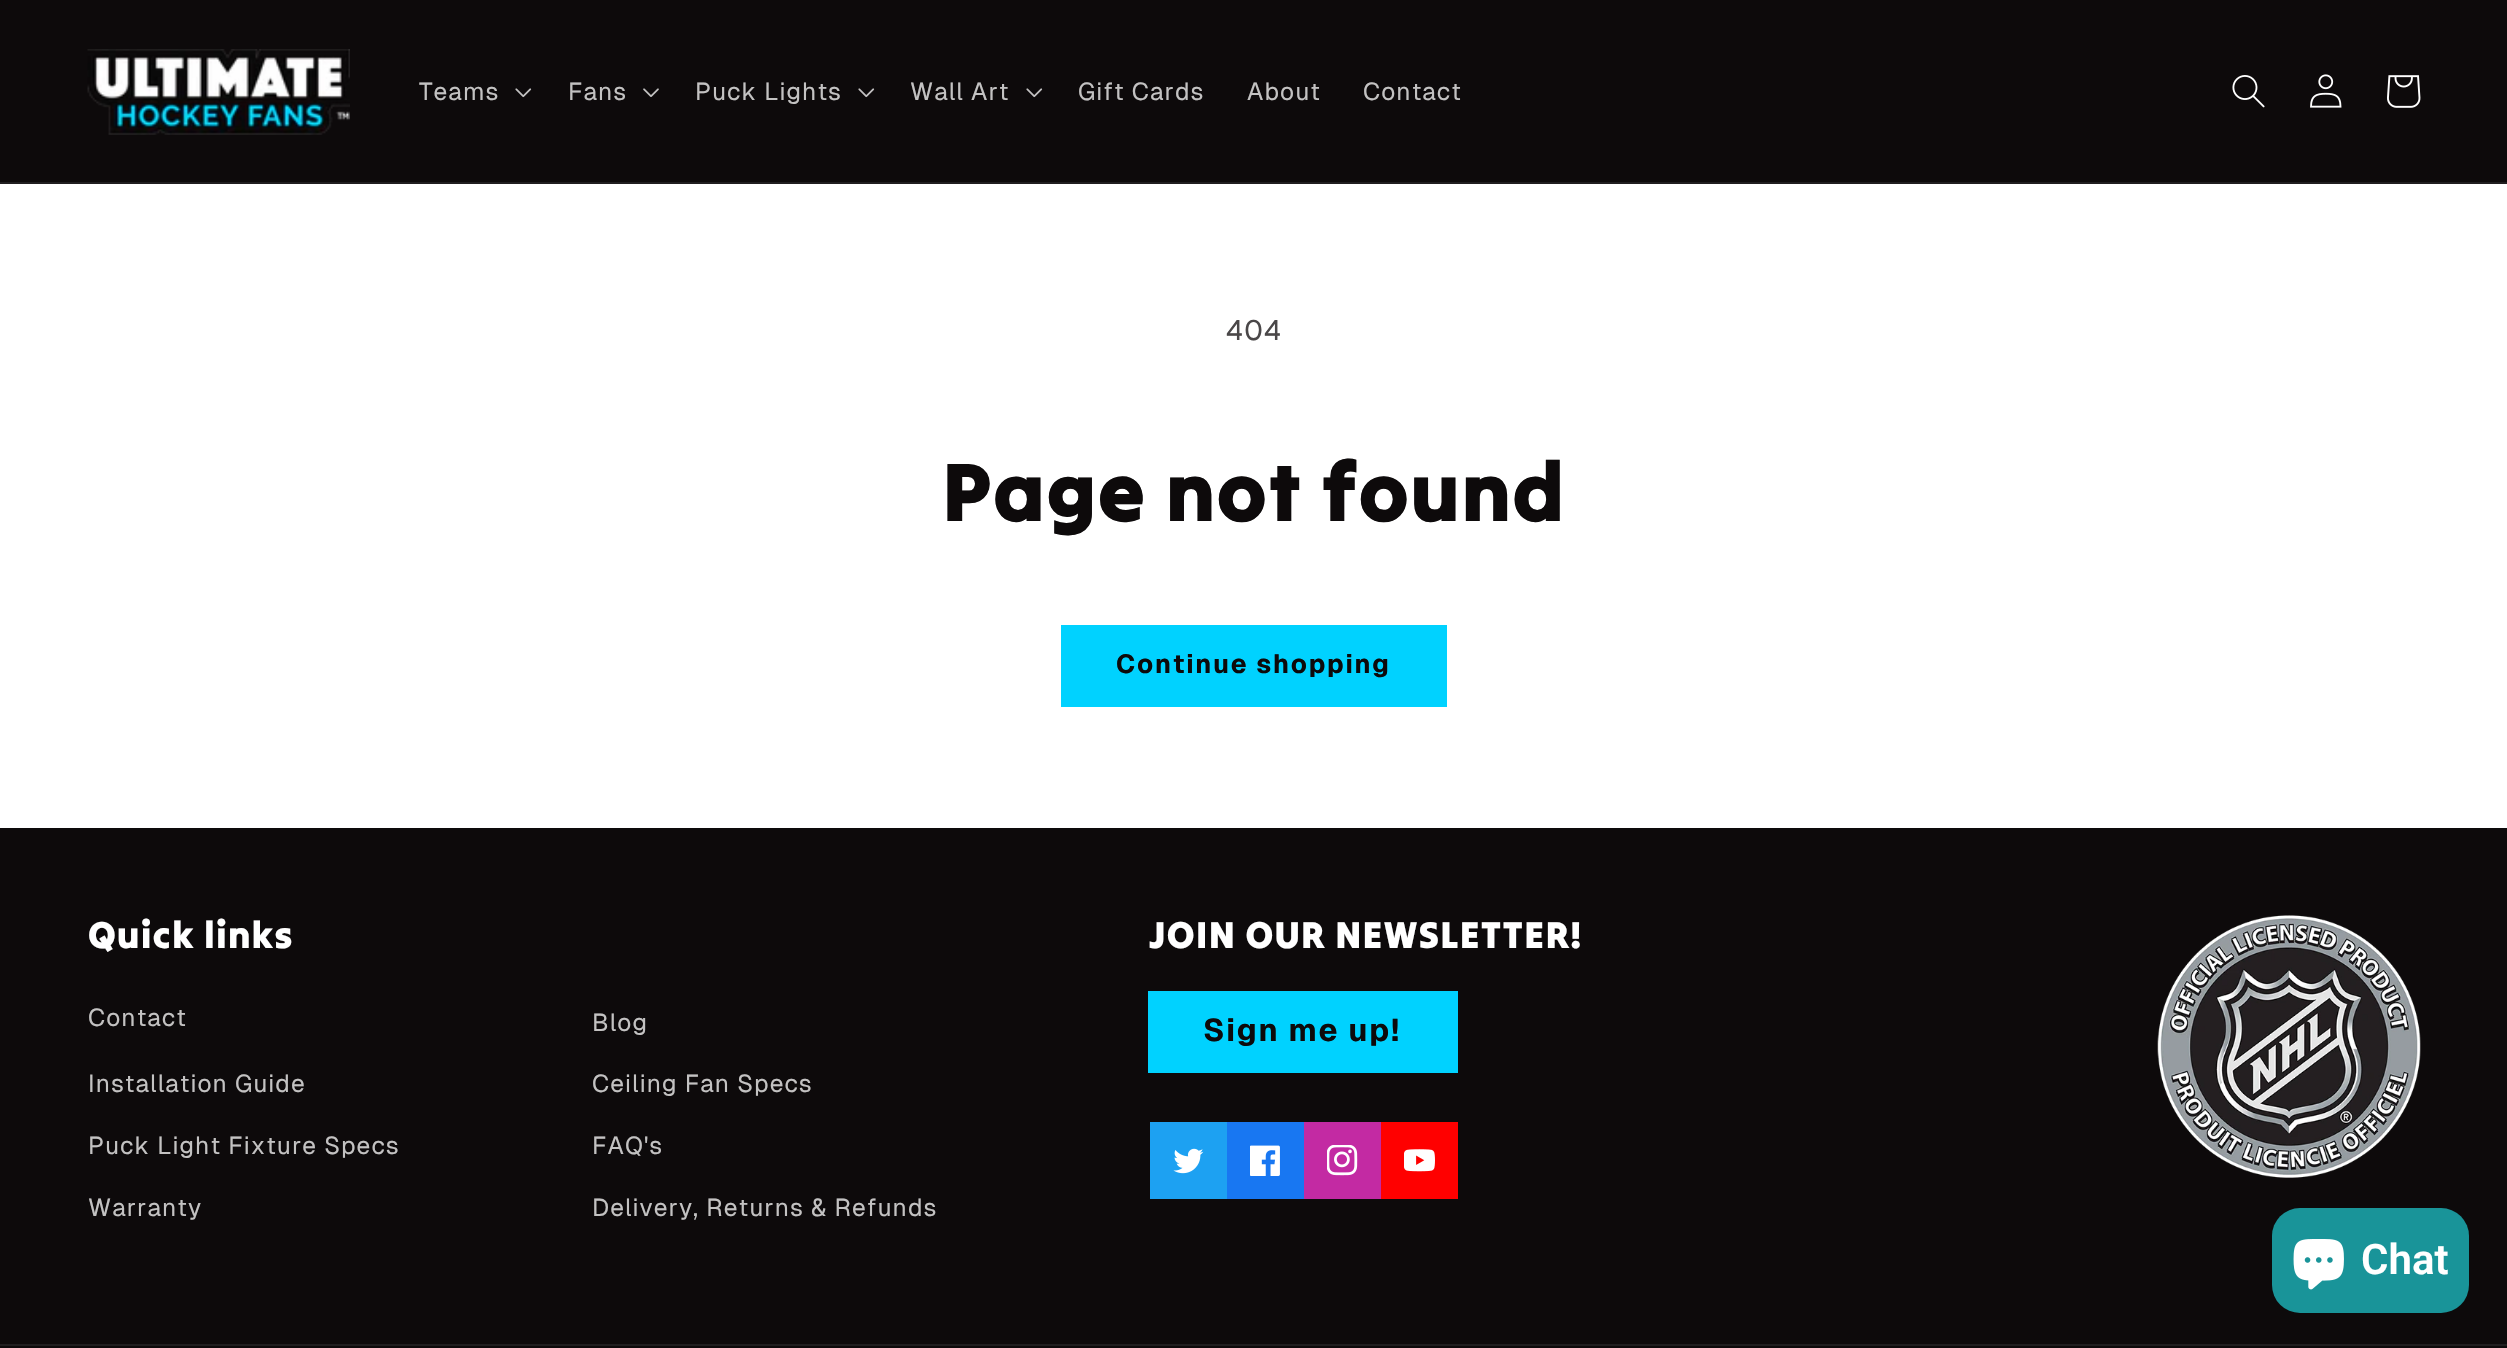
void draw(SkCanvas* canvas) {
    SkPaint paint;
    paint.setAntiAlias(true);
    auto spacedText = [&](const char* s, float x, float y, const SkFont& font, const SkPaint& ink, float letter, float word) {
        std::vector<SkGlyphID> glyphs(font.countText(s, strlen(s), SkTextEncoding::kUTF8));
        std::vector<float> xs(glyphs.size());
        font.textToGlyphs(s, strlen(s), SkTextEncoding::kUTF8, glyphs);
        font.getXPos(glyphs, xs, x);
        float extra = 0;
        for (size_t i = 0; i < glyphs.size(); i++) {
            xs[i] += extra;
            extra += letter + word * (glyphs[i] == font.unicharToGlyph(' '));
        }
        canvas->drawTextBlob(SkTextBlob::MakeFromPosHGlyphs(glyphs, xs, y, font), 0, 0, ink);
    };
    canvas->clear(0xFFFFFFFF);
    paint.setColor(0xFF0D0A0B);
    canvas->drawRect(SkRect::MakeXYWH(0, 0, 2507, 182), paint);
    paint.setColor(0xFF201E1F);
    canvas->drawRect(SkRect::MakeXYWH(0, 182, 2507, 2), paint);
    canvas->drawImageRect(SkImages::DeferredFromEncodedData(SkData::MakeFromFileName("img1.png")), SkRect::MakeXYWH(87, 49, 263, 86), SkSamplingOptions());
    SkFont font1(fontMgr->matchFamilyStyle("Geist", SkFontStyle::Normal()), 24.5f);
    font1.setSubpixel(true);
    paint.setColor(0xFFC3C2C2);
    spacedText("Teams", 419, 100, font1, paint, 1.05f, 0);
    canvas->drawImageRect(SkImages::DeferredFromEncodedData(SkData::MakeFromFileName("img2.png")), SkRect::MakeXYWH(515, 88, 17, 10), SkSamplingOptions());
    spacedText("Fans", 568, 100, font1, paint, 1.05f, 0);
    canvas->drawImageRect(SkImages::DeferredFromEncodedData(SkData::MakeFromFileName("img3.png")), SkRect::MakeXYWH(643, 88, 16, 9), SkSamplingOptions());
    spacedText("Puck Lights", 695, 100, font1, paint, 1.05f, 0);
    canvas->drawImageRect(SkImages::DeferredFromEncodedData(SkData::MakeFromFileName("img2.png")), SkRect::MakeXYWH(858, 88, 17, 10), SkSamplingOptions());
    spacedText("Wall Art", 910, 100, font1, paint, 1.05f, 0);
    canvas->drawImageRect(SkImages::DeferredFromEncodedData(SkData::MakeFromFileName("img2.png")), SkRect::MakeXYWH(1026, 88, 17, 10), SkSamplingOptions());
    spacedText("Gift Cards", 1078, 100, font1, paint, 1.05f, 0);
    spacedText("About", 1247, 100, font1, paint, 1.05f, 0);
    spacedText("Contact", 1363, 100, font1, paint, 1.05f, 0);
    canvas->drawImageRect(SkImages::DeferredFromEncodedData(SkData::MakeFromFileName("img4.png")), SkRect::MakeXYWH(2232, 75, 33, 33), SkSamplingOptions());
    canvas->drawImageRect(SkImages::DeferredFromEncodedData(SkData::MakeFromFileName("img5.png")), SkRect::MakeXYWH(2310, 74, 32, 34), SkSamplingOptions());
    canvas->drawImageRect(SkImages::DeferredFromEncodedData(SkData::MakeFromFileName("img6.png")), SkRect::MakeXYWH(2387, 75, 34, 33), SkSamplingOptions());
    SkFont font2(fontMgr->matchFamilyStyle("Geist", SkFontStyle::Normal()), 28);
    font2.setSubpixel(true);
    paint.setColor(0xFF4A4748);
    spacedText("404", 1226, 340, font2, paint, 1.05f, 0);
    SkFont font3(fontMgr->matchFamilyStyle("Tilt Warp", SkFontStyle::Normal()), 84);
    font3.setSubpixel(true);
    paint.setColor(0xFF0D0A0B);
    spacedText("Page not found", 942, 521, font3, paint, 1.25f, 0);
    paint.setStyle(SkPaint::kStroke_Style);
    paint.setStrokeWidth(2);
    paint.setColor(0xFF00D2FF);
    canvas->drawRect(SkRect::MakeXYWH(1062, 626, 384, 80), paint);
    paint.setStyle(SkPaint::kFill_Style);
    canvas->drawRect(SkRect::MakeXYWH(1063, 627, 382, 78), paint);
    SkFont font4(fontMgr->matchFamilyStyle("Geist", SkFontStyle::Bold()), 26.25f);
    font4.setSubpixel(true);
    paint.setColor(0xFF0D0A0B);
    spacedText("Continue shopping", 1116, 673, font4, paint, 1.75f, 0);
    canvas->drawRect(SkRect::MakeXYWH(0, 828, 2507, 520), paint);
    SkFont font5(fontMgr->matchFamilyStyle("Tilt Warp", SkFontStyle::Normal()), 37.75f);
    font5.setSubpixel(true);
    paint.setColor(0xFFFFFFFF);
    spacedText("Quick links", 88, 948, font5, paint, 1.25f, 0);
    paint.setColor(0xFFC3C2C2);
    spacedText("Contact", 88, 1026, font1, paint, 1.05f, 0);
    spacedText("Blog", 592, 1031, font1, paint, 1.05f, 0);
    spacedText("Installation Guide", 88, 1092, font1, paint, 1.05f, 0);
    spacedText("Ceiling Fan Specs", 592, 1092, font1, paint, 1.05f, 0);
    spacedText("Puck Light Fixture Specs", 88, 1154, font1, paint, 1.05f, 0);
    spacedText("FAQ's", 592, 1154, font1, paint, 1.05f, 0);
    spacedText("Warranty", 88, 1216, font1, paint, 1.05f, 0);
    spacedText("Delivery, Returns & Refunds", 592, 1216, font1, paint, 1.05f, 0);
    paint.setColor(0xFFFFFFFF);
    spacedText("JOIN OUR NEWSLETTER!", 1149, 948, font5, paint, 1.25f, 0);
    paint.setStyle(SkPaint::kStroke_Style);
    paint.setColor(0xFF00D2FF);
    canvas->drawRect(SkRect::MakeXYWH(1149, 992, 308, 80), paint);
    paint.setStyle(SkPaint::kFill_Style);
    canvas->drawRect(SkRect::MakeXYWH(1150, 993, 306, 78), paint);
    SkFont font6(fontMgr->matchFamilyStyle("Geist", SkFontStyle::Bold()), 31.5f);
    font6.setSubpixel(true);
    paint.setColor(0xFF0D0A0B);
    spacedText("Sign me up!", 1203, 1041, font6, paint, 1.75f, 0);
    paint.setColor(0xFF1DA1F2);
    canvas->drawRect(SkRect::MakeXYWH(1150, 1122, 77, 77), paint);
    canvas->drawImageRect(SkImages::DeferredFromEncodedData(SkData::MakeFromFileName("img7.png")), SkRect::MakeXYWH(1173, 1148, 31, 26), SkSamplingOptions());
    paint.setColor(0xFF1877F2);
    canvas->drawRect(SkRect::MakeXYWH(1227, 1122, 77, 77), paint);
    canvas->drawImageRect(SkImages::DeferredFromEncodedData(SkData::MakeFromFileName("img8.png")), SkRect::MakeXYWH(1250, 1145, 30, 31), SkSamplingOptions());
    paint.setColor(0xFFC32AA3);
    canvas->drawRect(SkRect::MakeXYWH(1304, 1122, 77, 77), paint);
    canvas->drawImageRect(SkImages::DeferredFromEncodedData(SkData::MakeFromFileName("img9.png")), SkRect::MakeXYWH(1327, 1145, 31, 31), SkSamplingOptions());
    paint.setColor(0xFFFF0000);
    canvas->drawRect(SkRect::MakeXYWH(1381, 1122, 77, 77), paint);
    canvas->drawImageRect(SkImages::DeferredFromEncodedData(SkData::MakeFromFileName("img10.png")), SkRect::MakeXYWH(1404, 1149, 31, 23), SkSamplingOptions());
    canvas->drawImageRect(SkImages::DeferredFromEncodedData(SkData::MakeFromFileName("img11.png")), SkRect::MakeXYWH(2157, 915, 264, 263), SkSamplingOptions());
    paint.setColor(0xFF201E1F);
    canvas->drawRect(SkRect::MakeXYWH(0, 1344, 2507, 2), paint);
    paint.setColor(0xFF199499);
    canvas->drawRoundRect(SkRect::MakeXYWH(2272, 1208, 197, 105), 28, 28, paint);
    canvas->drawImageRect(SkImages::DeferredFromEncodedData(SkData::MakeFromFileName("img12.png")), SkRect::MakeXYWH(2293, 1239, 51, 51), SkSamplingOptions());
    SkFont font7(fontMgr->matchFamilyStyle("Roboto", SkFontStyle(600, SkFontStyle::kNormal_Width, SkFontStyle::kUpright_Slant)), 42);
    font7.setSubpixel(true);
    paint.setColor(0xFFFFFFFF);
    canvas->drawString("Chat", 2361, 1274, font7, paint);
}
